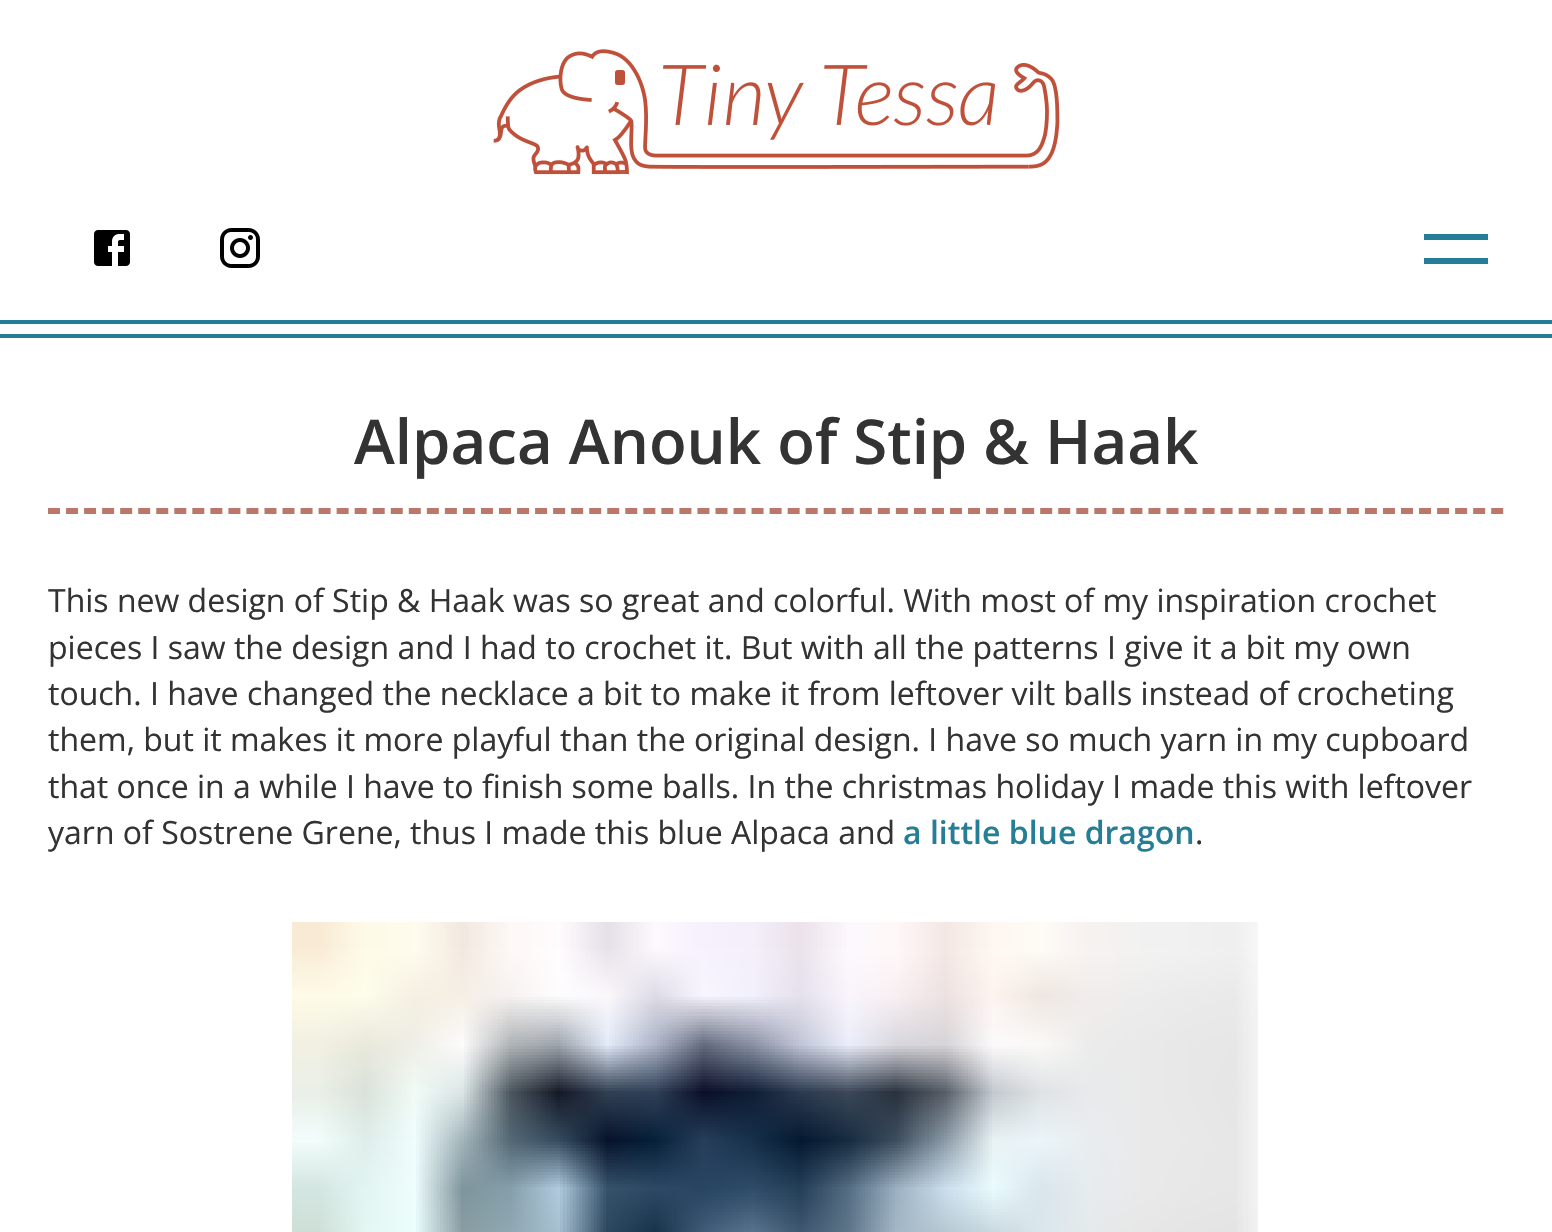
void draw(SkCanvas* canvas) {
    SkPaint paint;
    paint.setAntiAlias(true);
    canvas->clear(0xFFFFFFFF);
    canvas->drawImageRect(SkImages::DeferredFromEncodedData(SkData::MakeFromFileName("img1.png")), SkRect::MakeXYWH(493, 49, 567, 126), SkSamplingOptions());
    canvas->drawImageRect(SkImages::DeferredFromEncodedData(SkData::MakeFromFileName("img2.png")), SkRect::MakeXYWH(94, 230, 36, 36), SkSamplingOptions());
    canvas->drawImageRect(SkImages::DeferredFromEncodedData(SkData::MakeFromFileName("img3.png")), SkRect::MakeXYWH(220, 228, 40, 40), SkSamplingOptions());
    paint.setColor(0xFF267E96);
    canvas->drawRect(SkRect::MakeXYWH(1424, 234, 64, 6), paint);
    canvas->drawRect(SkRect::MakeXYWH(1424, 258, 64, 6), paint);
    canvas->drawRect(SkRect::MakeXYWH(0, 320, 1552, 4), paint);
    canvas->drawRect(SkRect::MakeXYWH(0, 334, 1552, 4), paint);
    SkFont font1(fontMgr->matchFamilyStyle("Open Sans", SkFontStyle(600, SkFontStyle::kNormal_Width, SkFontStyle::kUpright_Slant)), 61.75f);
    font1.setSubpixel(true);
    paint.setColor(0xFF333333);
    canvas->drawString("Alpaca Anouk of Stip & Haak", 354, 464, font1, paint);
    paint.setStyle(SkPaint::kStroke_Style);
    paint.setStrokeWidth(6);
    paint.setColor(0xFFBB776B);
    paint.setPathEffect(SkDashPathEffect::Make({{12, 6.04f}}, 0));
    canvas->drawPath(SkPathBuilder().moveTo(48, 511).lineTo(1504, 511).detach(), paint);
    paint.setPathEffect(nullptr);
    SkFont font2(fontMgr->matchFamilyStyle("Open Sans", SkFontStyle::Normal()), 32);
    font2.setSubpixel(true);
    paint.setStyle(SkPaint::kFill_Style);
    paint.setColor(0xFF333333);
    canvas->drawString("This new design of Stip & Haak was so great and colorful. With most of my inspiration crochet", 48, 612, font2, paint);
    canvas->drawString("pieces I saw the design and I had to crochet it. But with all the patterns I give it a bit my own", 48, 659, font2, paint);
    canvas->drawString("touch. I have changed the necklace a bit to make it from leftover vilt balls instead of crocheting", 48, 705, font2, paint);
    canvas->drawString("them, but it makes it more playful than the original design. I have so much yarn in my cupboard", 48, 751, font2, paint);
    canvas->drawString("that once in a while I have to finish some balls. In the christmas holiday I made this with leftover", 48, 798, font2, paint);
    canvas->drawString("yarn of Sostrene Grene, thus I made this blue Alpaca and", 48, 844, font2, paint);
    SkFont font3(fontMgr->matchFamilyStyle("Open Sans", SkFontStyle(600, SkFontStyle::kNormal_Width, SkFontStyle::kUpright_Slant)), 32);
    font3.setSubpixel(true);
    paint.setColor(0xFF267E96);
    canvas->drawString("a little blue dragon", 903, 844, font3, paint);
    paint.setColor(0xFF333333);
    canvas->drawString(".", 1195, 844, font2, paint);
    canvas->drawImageRect(SkImages::DeferredFromEncodedData(SkData::MakeFromFileName("img4.png")), SkRect::MakeXYWH(292, 922, 966, 310), SkSamplingOptions());
}
